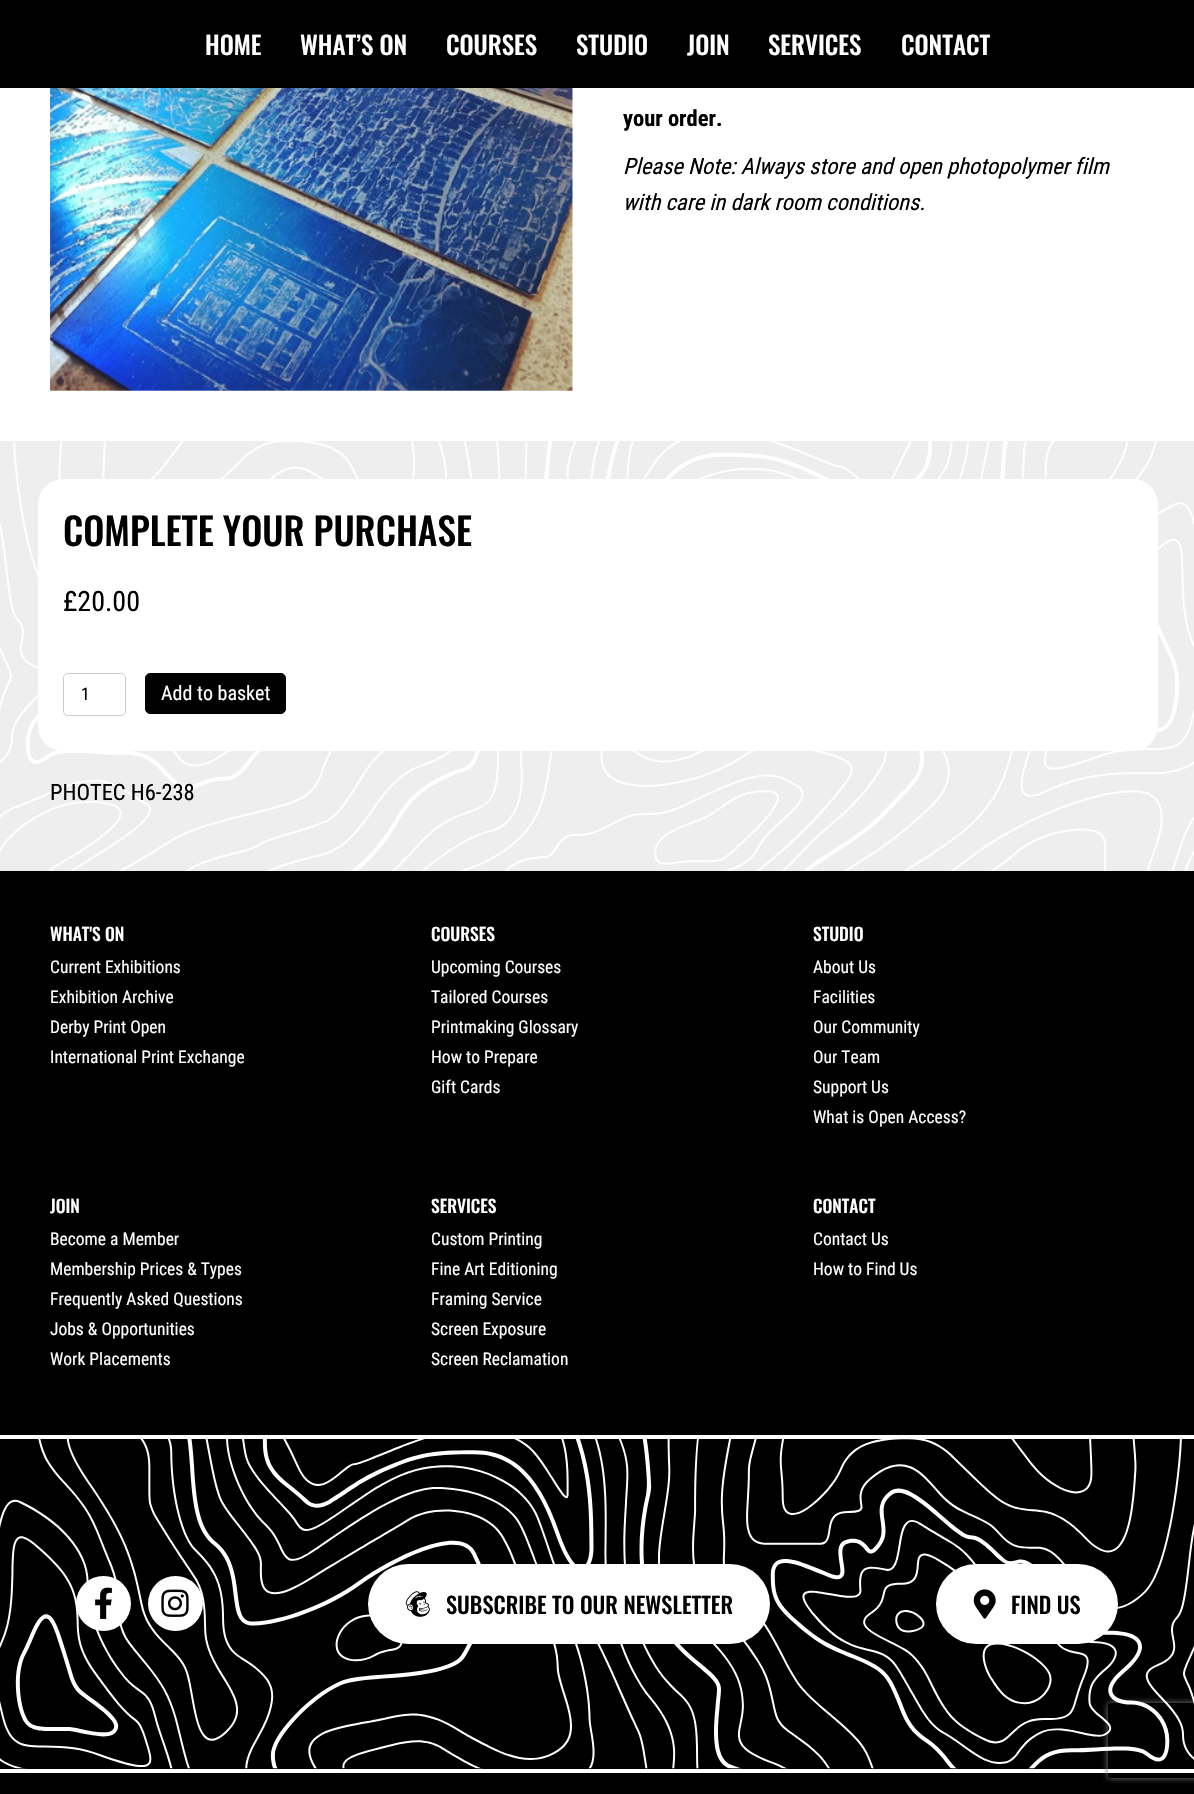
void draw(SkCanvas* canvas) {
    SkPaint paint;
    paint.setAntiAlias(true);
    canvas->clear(0xFFFFFFFF);
    paint.setColor(0xFF000000);
    canvas->drawRect(SkRect::MakeXYWH(0, 0, 1194, 88), paint);
    SkFont font1(fontMgr->matchFamilyStyle("Oswald", SkFontStyle(500, SkFontStyle::kNormal_Width, SkFontStyle::kUpright_Slant)), 25);
    font1.setSubpixel(true);
    paint.setColor(0xFFFFFFFF);
    canvas->drawString("HOME", 205, 55, font1, paint);
    canvas->drawString("WHAT’S ON", 300, 55, font1, paint);
    canvas->drawString("COURSES", 446, 55, font1, paint);
    canvas->drawString("STUDIO", 576, 55, font1, paint);
    canvas->drawString("JOIN", 687, 55, font1, paint);
    canvas->drawString("SERVICES", 768, 55, font1, paint);
    canvas->drawString("CONTACT", 901, 55, font1, paint);
    canvas->drawImageRect(SkImages::DeferredFromEncodedData(SkData::MakeFromFileName("img1.png")), SkRect::MakeXYWH(50, 88, 523, 303), SkSamplingOptions());
    SkFont font2(fontMgr->matchFamilyStyle("Roboto Condensed", SkFontStyle::Bold()), 22.5f);
    font2.setSubpixel(true);
    paint.setColor(0xFF000000);
    canvas->drawString("your order.", 623, 126, font2, paint);
    SkFont font3(fontMgr->matchFamilyStyle("Roboto Condensed", SkFontStyle::Italic()), 22.5f);
    font3.setSubpixel(true);
    canvas->drawString("Please Note: Always store and open photopolymer film", 623, 174, font3, paint);
    canvas->drawString("with care in dark room conditions.", 623, 210, font3, paint);
    paint.setColor(0xFFEEEEEE);
    canvas->drawRect(SkRect::MakeXYWH(0, 441, 1194, 430), paint);
    canvas->drawImageRect(SkImages::DeferredFromEncodedData(SkData::MakeFromFileName("img2.png")), SkRect::MakeXYWH(0, 441, 1194, 430), SkSamplingOptions());
    paint.setColor(0xFFFFFFFF);
    canvas->drawRoundRect(SkRect::MakeXYWH(38, 479, 1120, 272), 25, 25, paint);
    SkFont font4(fontMgr->matchFamilyStyle("Oswald", SkFontStyle(500, SkFontStyle::kNormal_Width, SkFontStyle::kUpright_Slant)), 37.5f);
    font4.setSubpixel(true);
    paint.setColor(0xFF000000);
    canvas->drawString("COMPLETE YOUR PURCHASE", 63, 546, font4, paint);
    SkFont font5(fontMgr->matchFamilyStyle("Roboto Condensed", SkFontStyle::Normal()), 28);
    font5.setSubpixel(true);
    canvas->drawString("£20.00", 63, 611, font5, paint);
    paint.setStyle(SkPaint::kStroke_Style);
    paint.setStrokeWidth(1);
    paint.setColor(0xFFCCCCCC);
    canvas->drawRoundRect(SkRect::MakeXYWH(63.5f, 673.5f, 62, 42), 4.5f, 4.5f, paint);
    SkFont font6(fontMgr->matchFamilyStyle("Roboto Condensed", SkFontStyle::Normal()), 17.5f);
    font6.setSubpixel(true);
    paint.setStyle(SkPaint::kFill_Style);
    paint.setColor(0xFF000000);
    canvas->drawString("1", 81, 700, font6, paint);
    canvas->drawRoundRect(SkRect::MakeXYWH(145.5f, 673.5f, 140, 40), 4.5f, 4.5f, paint);
    paint.setStyle(SkPaint::kStroke_Style);
    canvas->drawRoundRect(SkRect::MakeXYWH(145.5f, 673.5f, 140, 40), 4.5f, 4.5f, paint);
    SkFont font7(fontMgr->matchFamilyStyle("Roboto Condensed", SkFontStyle::Normal()), 20);
    font7.setSubpixel(true);
    paint.setStyle(SkPaint::kFill_Style);
    paint.setColor(0xFFFFFFFF);
    canvas->drawString("Add to basket", 161, 700, font7, paint);
    SkFont font8(fontMgr->matchFamilyStyle("Roboto Condensed", SkFontStyle::Normal()), 22.5f);
    font8.setSubpixel(true);
    paint.setColor(0xFF000000);
    canvas->drawString("PHOTEC H6-238", 50, 800, font8, paint);
    canvas->drawRect(SkRect::MakeXYWH(0, 871, 1194, 564), paint);
    SkFont font9(fontMgr->matchFamilyStyle("Oswald", SkFontStyle(500, SkFontStyle::kNormal_Width, SkFontStyle::kUpright_Slant)), 17.5f);
    font9.setSubpixel(true);
    paint.setColor(0xFFFFFFFF);
    canvas->drawString("WHAT'S ON", 50, 941, font9, paint);
    canvas->drawString("Current Exhibitions", 50, 973, font6, paint);
    canvas->drawString("Exhibition Archive", 50, 1003, font6, paint);
    canvas->drawString("Derby Print Open", 50, 1033, font6, paint);
    canvas->drawString("International Print Exchange", 50, 1063, font6, paint);
    canvas->drawString("COURSES", 431, 941, font9, paint);
    canvas->drawString("Upcoming Courses", 431, 973, font6, paint);
    canvas->drawString("Tailored Courses", 431, 1003, font6, paint);
    canvas->drawString("Printmaking Glossary", 431, 1033, font6, paint);
    canvas->drawString("How to Prepare", 431, 1063, font6, paint);
    canvas->drawString("Gift Cards", 431, 1093, font6, paint);
    canvas->drawString("STUDIO", 813, 941, font9, paint);
    canvas->drawString("About Us", 813, 973, font6, paint);
    canvas->drawString("Facilities", 813, 1003, font6, paint);
    canvas->drawString("Our Community", 813, 1033, font6, paint);
    canvas->drawString("Our Team", 813, 1063, font6, paint);
    canvas->drawString("Support Us", 813, 1093, font6, paint);
    canvas->drawString("What is Open Access?", 813, 1123, font6, paint);
    canvas->drawString("JOIN", 50, 1213, font9, paint);
    canvas->drawString("Become a Member", 50, 1245, font6, paint);
    canvas->drawString("Membership Prices & Types", 50, 1275, font6, paint);
    canvas->drawString("Frequently Asked Questions", 50, 1305, font6, paint);
    canvas->drawString("Jobs & Opportunities", 50, 1335, font6, paint);
    canvas->drawString("Work Placements", 50, 1365, font6, paint);
    canvas->drawString("SERVICES", 431, 1213, font9, paint);
    canvas->drawString("Custom Printing", 431, 1245, font6, paint);
    canvas->drawString("Fine Art Editioning", 431, 1275, font6, paint);
    canvas->drawString("Framing Service", 431, 1305, font6, paint);
    canvas->drawString("Screen Exposure", 431, 1335, font6, paint);
    canvas->drawString("Screen Reclamation", 431, 1365, font6, paint);
    canvas->drawString("CONTACT", 813, 1213, font9, paint);
    canvas->drawString("Contact Us", 813, 1245, font6, paint);
    canvas->drawString("How to Find Us", 813, 1275, font6, paint);
    paint.setColor(0xFF000000);
    canvas->drawRect(SkRect::MakeXYWH(0, 1439, 1194, 330), paint);
    canvas->drawRect(SkRect::MakeXYWH(0, 1773, 1194, 21), paint);
    canvas->save();
    canvas->clipPath(SkPathBuilder(SkPathFillType::kEvenOdd).moveTo(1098, 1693).lineTo(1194, 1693).lineTo(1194, 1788).lineTo(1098, 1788).close().moveTo(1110.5f, 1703).lineTo(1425.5f, 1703).cubicTo(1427, 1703, 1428, 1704, 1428, 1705.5f).lineTo(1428, 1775.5f).cubicTo(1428, 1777, 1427, 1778, 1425.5f, 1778).lineTo(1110.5f, 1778).cubicTo(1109, 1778, 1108, 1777, 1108, 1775.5f).lineTo(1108, 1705.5f).cubicTo(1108, 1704, 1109, 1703, 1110.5f, 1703).close().detach(), true);
    paint.setColor(0xFF808080);
    paint.setMaskFilter(SkMaskFilter::MakeBlur(kNormal_SkBlurStyle, 3));
    canvas->drawRoundRect(SkRect::MakeXYWH(1108, 1703, 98, 75), 2.5f, 2.5f, paint);
    paint.setMaskFilter(nullptr);
    canvas->restore();
    canvas->drawImageRect(SkImages::DeferredFromEncodedData(SkData::MakeFromFileName("img3.png")), SkRect::MakeXYWH(0, 1439, 1194, 330), SkSamplingOptions());
    paint.setColor(0xFFFFFFFF);
    canvas->drawCircle(103.5f, 1603.5f, 27.5f, paint);
    canvas->drawImageRect(SkImages::DeferredFromEncodedData(SkData::MakeFromFileName("img4.png")), SkRect::MakeXYWH(95, 1587, 17, 32), SkSamplingOptions());
    canvas->drawCircle(175.5f, 1603.5f, 27.5f, paint);
    canvas->drawImageRect(SkImages::DeferredFromEncodedData(SkData::MakeFromFileName("img5.png")), SkRect::MakeXYWH(161, 1589, 28, 28), SkSamplingOptions());
    canvas->drawRoundRect(SkRect::MakeXYWH(368, 1564, 402, 80), 40, 40, paint);
    canvas->drawImageRect(SkImages::DeferredFromEncodedData(SkData::MakeFromFileName("img6.png")), SkRect::MakeXYWH(405, 1591, 25, 26), SkSamplingOptions());
    SkFont font10(fontMgr->matchFamilyStyle("Oswald", SkFontStyle(500, SkFontStyle::kNormal_Width, SkFontStyle::kUpright_Slant)), 22.5f);
    font10.setSubpixel(true);
    paint.setColor(0xFF000000);
    canvas->drawString("SUBSCRIBE TO OUR NEWSLETTER", 446, 1614, font10, paint);
    paint.setColor(0xFFFFFFFF);
    canvas->drawRoundRect(SkRect::MakeXYWH(936, 1564, 182, 80), 40, 40, paint);
    canvas->drawImageRect(SkImages::DeferredFromEncodedData(SkData::MakeFromFileName("img7.png")), SkRect::MakeXYWH(973, 1589, 23, 30), SkSamplingOptions());
    paint.setColor(0xFF000000);
    canvas->drawString("FIND US", 1011, 1614, font10, paint);
}
